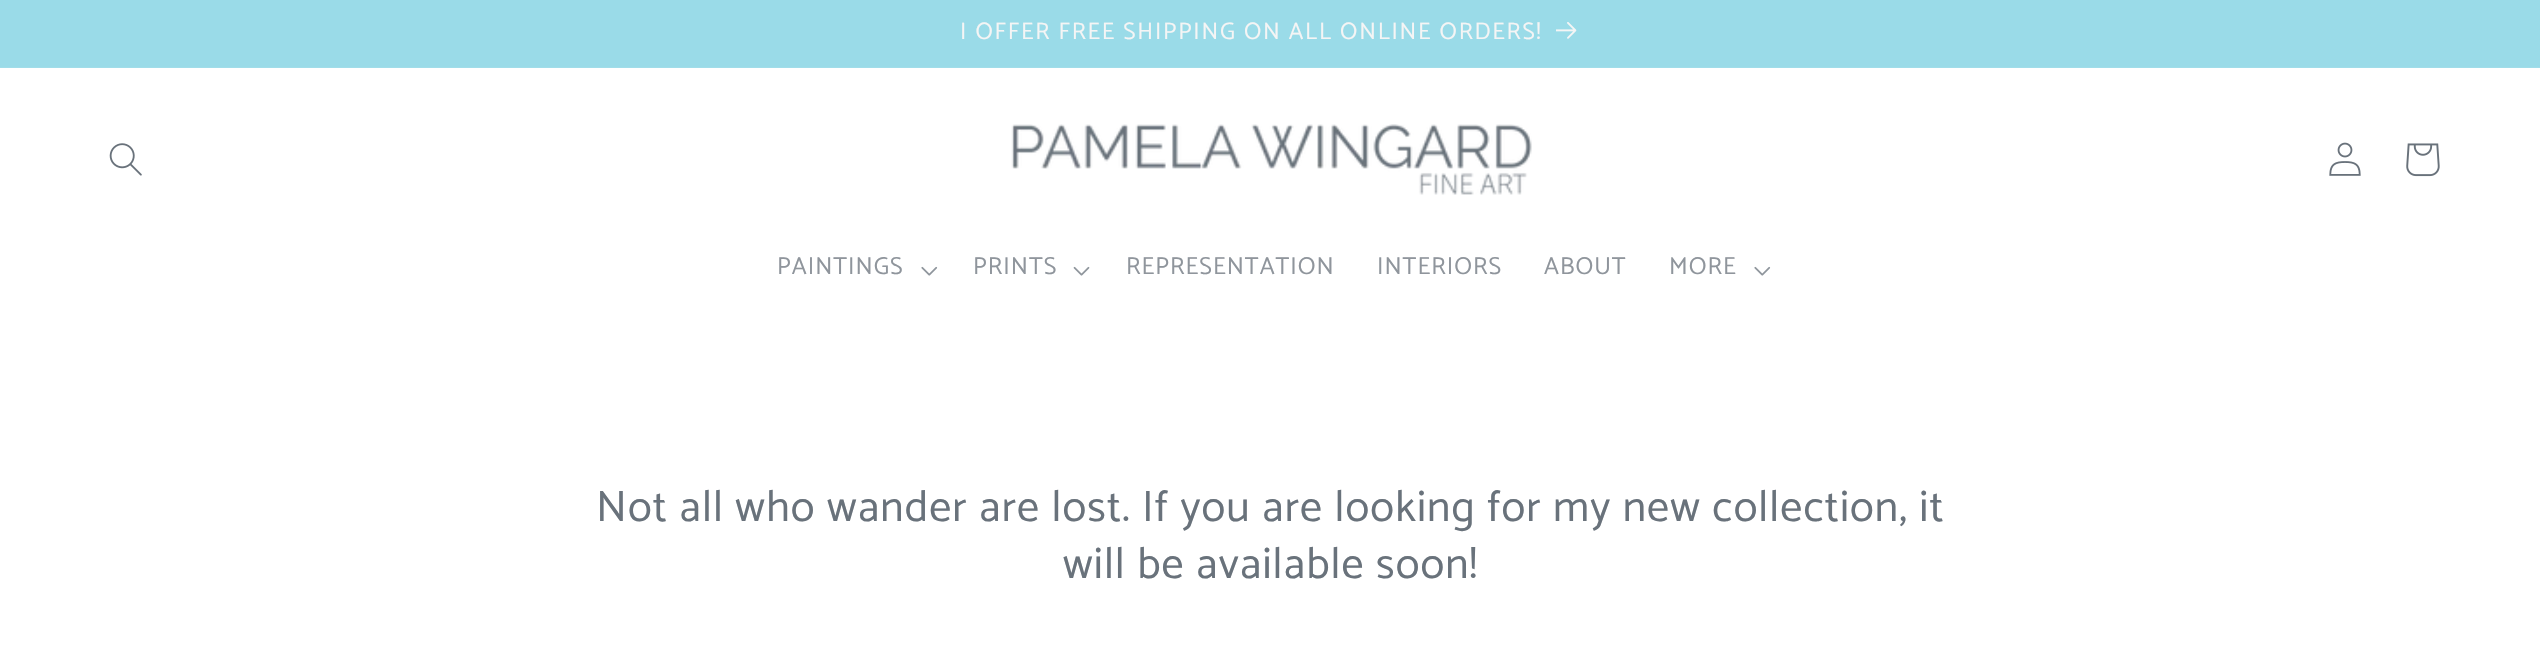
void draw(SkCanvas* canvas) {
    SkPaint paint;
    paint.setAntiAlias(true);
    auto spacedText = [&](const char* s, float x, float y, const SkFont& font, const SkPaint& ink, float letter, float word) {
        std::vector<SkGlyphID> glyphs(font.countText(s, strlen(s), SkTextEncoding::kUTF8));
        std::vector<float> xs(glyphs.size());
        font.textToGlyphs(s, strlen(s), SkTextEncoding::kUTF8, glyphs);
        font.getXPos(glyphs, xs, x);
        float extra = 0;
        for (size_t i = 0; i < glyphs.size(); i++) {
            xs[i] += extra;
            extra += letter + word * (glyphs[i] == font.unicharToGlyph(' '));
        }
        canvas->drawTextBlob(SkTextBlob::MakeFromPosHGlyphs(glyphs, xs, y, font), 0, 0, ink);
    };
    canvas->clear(0xFFFFFFFF);
    paint.setColor(0xFF9ADBE8);
    canvas->drawRect(SkRect::MakeXYWH(0, 0, 2540, 67), paint);
    paint.setColor(0xFFA1DDE9);
    canvas->drawRect(SkRect::MakeXYWH(0, 67, 2540, 1), paint);
    SkFont font1(fontMgr->matchFamilyStyle("Catamaran", SkFontStyle::Normal()), 23.9f);
    font1.setSubpixel(true);
    paint.setColor(0xFFF5F5F5);
    spacedText("I OFFER FREE SHIPPING ON ALL ONLINE ORDERS!", 960, 39, font1, paint, 1.75f, 0);
    canvas->drawImageRect(SkImages::DeferredFromEncodedData(SkData::MakeFromFileName("img1.png")), SkRect::MakeXYWH(1556, 22, 21, 17), SkSamplingOptions());
    canvas->drawImageRect(SkImages::DeferredFromEncodedData(SkData::MakeFromFileName("img2.png")), SkRect::MakeXYWH(109, 143, 33, 33), SkSamplingOptions());
    canvas->drawImageRect(SkImages::DeferredFromEncodedData(SkData::MakeFromFileName("img3.png")), SkRect::MakeXYWH(1011, 124, 521, 71), SkSamplingOptions());
    canvas->drawImageRect(SkImages::DeferredFromEncodedData(SkData::MakeFromFileName("img4.png")), SkRect::MakeXYWH(2329, 142, 32, 34), SkSamplingOptions());
    canvas->drawImageRect(SkImages::DeferredFromEncodedData(SkData::MakeFromFileName("img5.png")), SkRect::MakeXYWH(2406, 143, 34, 34), SkSamplingOptions());
    SkFont font2(fontMgr->matchFamilyStyle("Catamaran", SkFontStyle::Normal()), 24.5f);
    font2.setSubpixel(true);
    paint.setColor(0xFF8F959C);
    spacedText("PAINTINGS", 777, 274, font2, paint, 1, 0);
    canvas->drawImageRect(SkImages::DeferredFromEncodedData(SkData::MakeFromFileName("img6.png")), SkRect::MakeXYWH(921, 266, 17, 10), SkSamplingOptions());
    spacedText("PRINTS", 973, 274, font2, paint, 1, 0);
    canvas->drawImageRect(SkImages::DeferredFromEncodedData(SkData::MakeFromFileName("img7.png")), SkRect::MakeXYWH(1073, 266, 17, 10), SkSamplingOptions());
    spacedText("REPRESENTATION", 1126, 274, font2, paint, 1, 0);
    spacedText("INTERIORS", 1377, 274, font2, paint, 1, 0);
    spacedText("ABOUT", 1544, 274, font2, paint, 1, 0);
    spacedText("MORE", 1669, 274, font2, paint, 1, 0);
    canvas->drawImageRect(SkImages::DeferredFromEncodedData(SkData::MakeFromFileName("img6.png")), SkRect::MakeXYWH(1754, 266, 17, 10), SkSamplingOptions());
    SkFont font3(fontMgr->matchFamilyStyle("Catamaran", SkFontStyle::Normal()), 44.1f);
    font3.setSubpixel(true);
    paint.setColor(0xFF69727B);
    spacedText("Not all who wander are lost. If you are looking for my new collection, it", 596, 521, font3, paint, 1.1f, 0);
    spacedText("will be available soon!", 1063, 578, font3, paint, 1.1f, 0);
}
